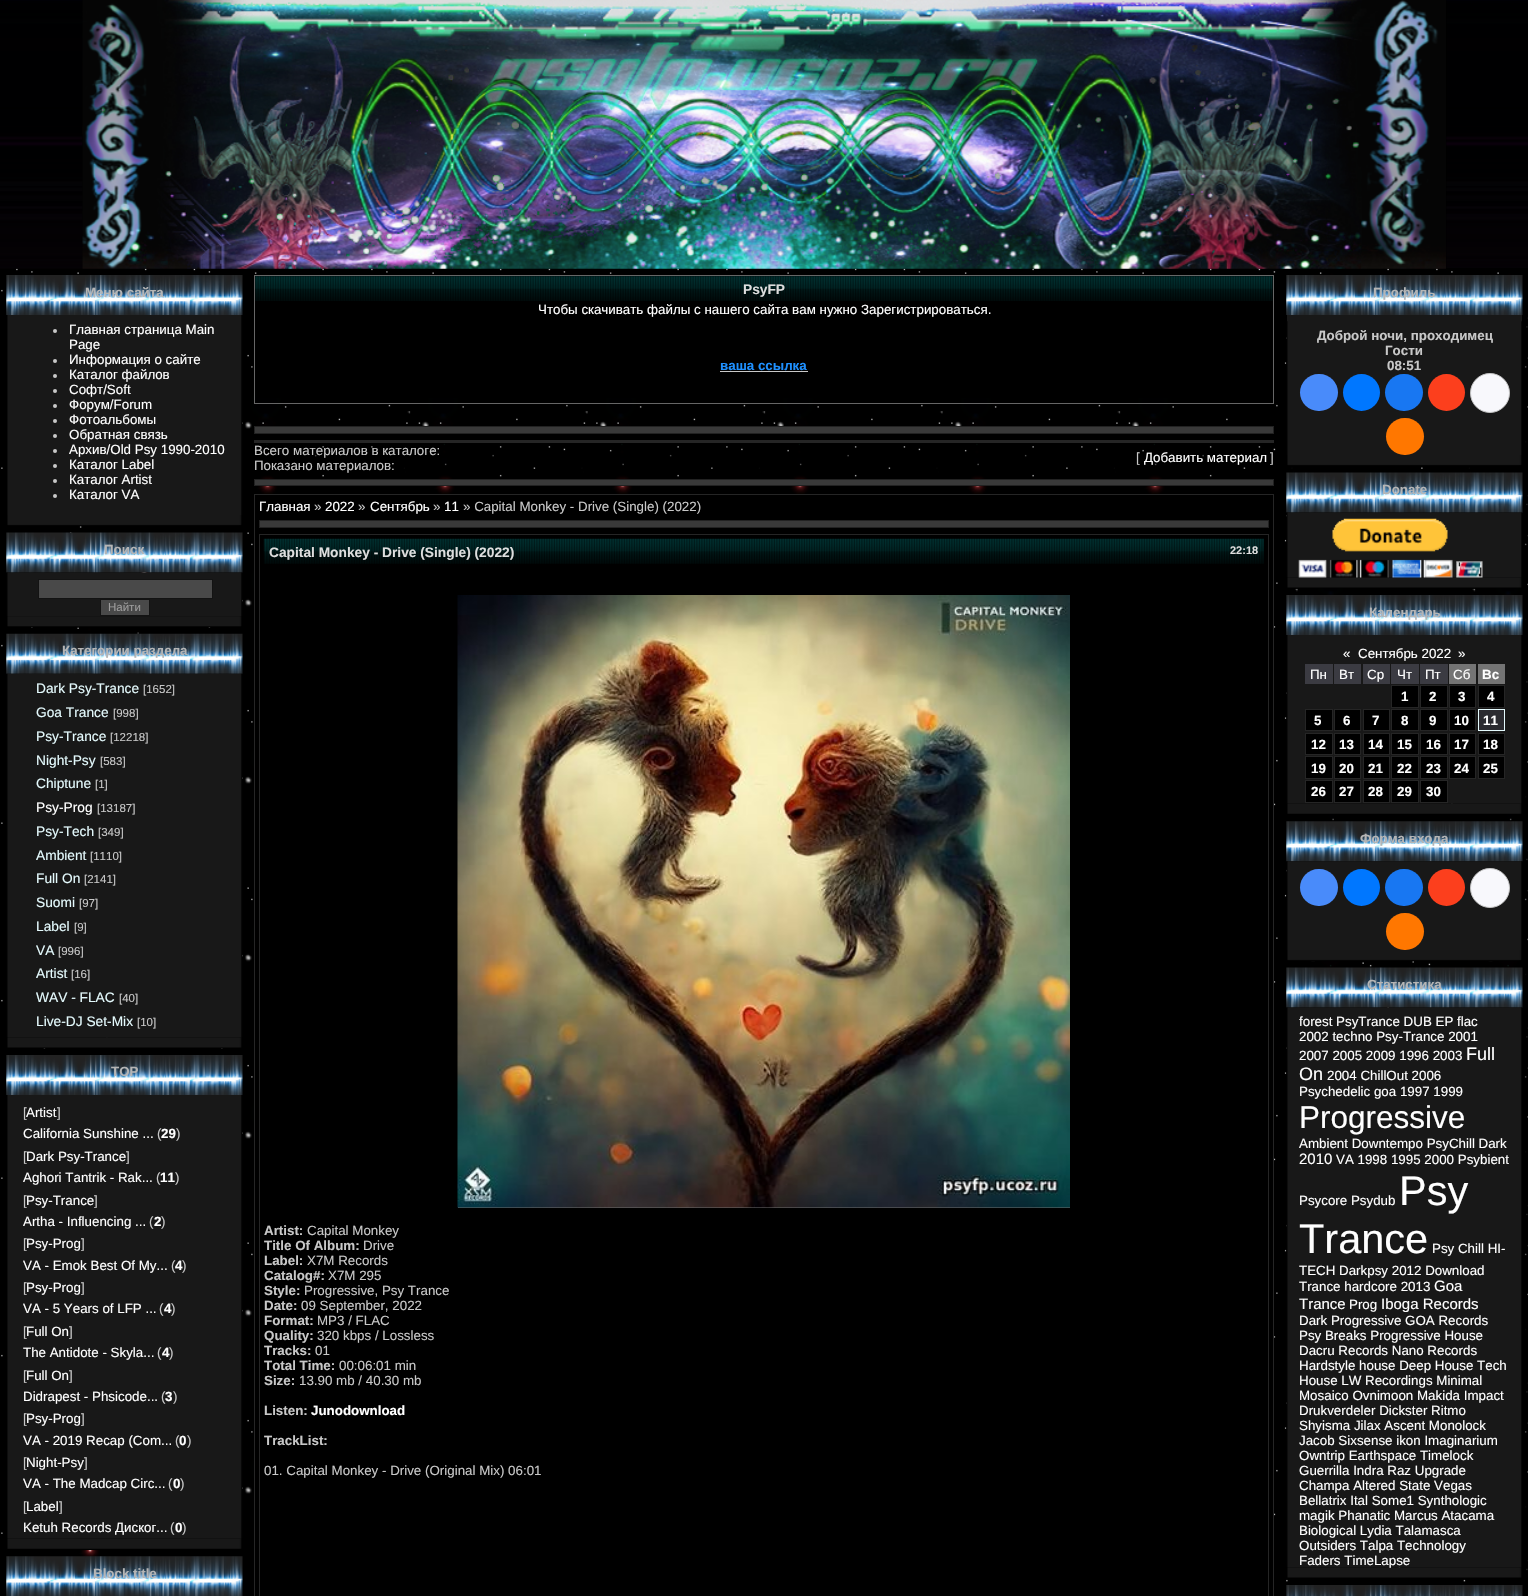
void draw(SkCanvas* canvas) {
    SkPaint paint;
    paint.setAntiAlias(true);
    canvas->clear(0xFF000000);
    canvas->drawImageRect(SkImages::DeferredFromEncodedData(SkData::MakeFromFileName("img1.png")), SkRect::MakeXYWH(1, 0, 1527, 1593), SkSamplingOptions());
    canvas->drawImageRect(SkImages::DeferredFromEncodedData(SkData::MakeFromFileName("img2.png")), SkRect::MakeXYWH(0, 0, 83, 269), SkSamplingOptions());
    canvas->drawImageRect(SkImages::DeferredFromEncodedData(SkData::MakeFromFileName("img3.png")), SkRect::MakeXYWH(82, 0, 1364, 269), SkSamplingOptions());
    canvas->drawImageRect(SkImages::DeferredFromEncodedData(SkData::MakeFromFileName("img4.png")), SkRect::MakeXYWH(1446, 0, 82, 268), SkSamplingOptions());
    canvas->drawImageRect(SkImages::DeferredFromEncodedData(SkData::MakeFromFileName("img5.png")), SkRect::MakeXYWH(6, 275, 237, 40), SkSamplingOptions());
    SkFont font1(fontMgr->matchFamilyStyle("Liberation Sans", SkFontStyle::Bold()), 13.35f);
    font1.setSubpixel(true);
    paint.setColor(0xFFB5B5B5);
    canvas->drawString("Меню сайта", 85, 297, font1, paint);
    canvas->drawImageRect(SkImages::DeferredFromEncodedData(SkData::MakeFromFileName("img6.png")), SkRect::MakeXYWH(7, 315, 236, 200), SkSamplingOptions());
    paint.setColor(0xFFC8C8C8);
    canvas->drawCircle(55, 331, 2, paint);
    SkFont font2(fontMgr->matchFamilyStyle("Liberation Sans", SkFontStyle::Normal()), 13.35f);
    font2.setSubpixel(true);
    paint.setColor(0xFFFFFFFF);
    canvas->drawString("Главная страница Main", 69, 334, font2, paint);
    canvas->drawString("Page", 69, 349, font2, paint);
    paint.setColor(0xFFC8C8C8);
    canvas->drawCircle(55, 361, 2, paint);
    paint.setColor(0xFFFFFFFF);
    canvas->drawString("Информация о сайте", 69, 364, font2, paint);
    paint.setColor(0xFFC8C8C8);
    canvas->drawCircle(55, 376, 2, paint);
    paint.setColor(0xFFFFFFFF);
    canvas->drawString("Каталог файлов", 69, 379, font2, paint);
    paint.setColor(0xFFC8C8C8);
    canvas->drawCircle(55, 391, 2, paint);
    paint.setColor(0xFFFFFFFF);
    canvas->drawString("Софт/Soft", 69, 394, font2, paint);
    paint.setColor(0xFFC8C8C8);
    canvas->drawCircle(55, 406, 2, paint);
    paint.setColor(0xFFFFFFFF);
    canvas->drawString("Форум/Forum", 69, 409, font2, paint);
    paint.setColor(0xFFC8C8C8);
    canvas->drawCircle(55, 421, 2, paint);
    paint.setColor(0xFFFFFFFF);
    canvas->drawString("Фотоальбомы", 69, 424, font2, paint);
    paint.setColor(0xFFC8C8C8);
    canvas->drawCircle(55, 436, 2, paint);
    paint.setColor(0xFFFFFFFF);
    canvas->drawString("Обратная связь", 69, 439, font2, paint);
    paint.setColor(0xFFC8C8C8);
    canvas->drawCircle(55, 451, 2, paint);
    paint.setColor(0xFFFFFFFF);
    canvas->drawString("Архив/Old Psy 1990-2010", 69, 454, font2, paint);
    paint.setColor(0xFFC8C8C8);
    canvas->drawCircle(55, 466, 2, paint);
    paint.setColor(0xFFFFFFFF);
    canvas->drawString("Каталог Label", 69, 469, font2, paint);
    paint.setColor(0xFFC8C8C8);
    canvas->drawCircle(55, 481, 2, paint);
    paint.setColor(0xFFFFFFFF);
    canvas->drawString("Каталог Artist", 69, 484, font2, paint);
    paint.setColor(0xFFC8C8C8);
    canvas->drawCircle(55, 496, 2, paint);
    paint.setColor(0xFFFFFFFF);
    canvas->drawString("Каталог VA", 69, 499, font2, paint);
    canvas->drawImageRect(SkImages::DeferredFromEncodedData(SkData::MakeFromFileName("img7.png")), SkRect::MakeXYWH(7, 515, 235, 12), SkSamplingOptions());
    canvas->drawImageRect(SkImages::DeferredFromEncodedData(SkData::MakeFromFileName("img8.png")), SkRect::MakeXYWH(6, 532, 237, 41), SkSamplingOptions());
    paint.setColor(0xFFB5B5B5);
    canvas->drawString("Поиск", 104, 554, font1, paint);
    canvas->drawImageRect(SkImages::DeferredFromEncodedData(SkData::MakeFromFileName("img9.png")), SkRect::MakeXYWH(6, 572, 237, 45), SkSamplingOptions());
    paint.setColor(0xFF494949);
    canvas->drawRect(SkRect::MakeXYWH(38.5f, 579.5f, 174, 19), paint);
    paint.setStyle(SkPaint::kStroke_Style);
    paint.setStrokeWidth(1);
    paint.setColor(0xFF131313);
    canvas->drawRect(SkRect::MakeXYWH(38.5f, 579.5f, 174, 19), paint);
    paint.setStyle(SkPaint::kFill_Style);
    paint.setColor(0xFF494949);
    canvas->drawRect(SkRect::MakeXYWH(100.5f, 599.5f, 49, 16), paint);
    paint.setStyle(SkPaint::kStroke_Style);
    paint.setColor(0xFF131313);
    canvas->drawRect(SkRect::MakeXYWH(100.5f, 599.5f, 49, 16), paint);
    SkFont font3(fontMgr->matchFamilyStyle("Liberation Sans", SkFontStyle::Normal()), 11.5f);
    font3.setSubpixel(true);
    paint.setStyle(SkPaint::kFill_Style);
    paint.setColor(0xFF9D9C9C);
    canvas->drawString("Найти", 108, 611, font3, paint);
    canvas->drawImageRect(SkImages::DeferredFromEncodedData(SkData::MakeFromFileName("img10.png")), SkRect::MakeXYWH(7, 616, 235, 12), SkSamplingOptions());
    canvas->drawImageRect(SkImages::DeferredFromEncodedData(SkData::MakeFromFileName("img11.png")), SkRect::MakeXYWH(6, 633, 237, 41), SkSamplingOptions());
    paint.setColor(0xFFB5B5B5);
    canvas->drawString("Категории раздела", 62, 655, font1, paint);
    canvas->drawImageRect(SkImages::DeferredFromEncodedData(SkData::MakeFromFileName("img12.png")), SkRect::MakeXYWH(6, 673, 237, 365), SkSamplingOptions());
    SkFont font4(fontMgr->matchFamilyStyle("Liberation Sans", SkFontStyle::Normal()), 13.75f);
    font4.setSubpixel(true);
    paint.setColor(0xFFE4FAFD);
    canvas->drawString("Dark Psy-Trance", 36, 693, font4, paint);
    paint.setColor(0xFFC8C8C8);
    canvas->drawString("[1652]", 143, 693, font3, paint);
    paint.setColor(0xFFE4FAFD);
    canvas->drawString("Goa Trance", 36, 717, font4, paint);
    paint.setColor(0xFFC8C8C8);
    canvas->drawString("[998]", 113, 717, font3, paint);
    paint.setColor(0xFFE4FAFD);
    canvas->drawString("Psy-Trance", 36, 741, font4, paint);
    paint.setColor(0xFFC8C8C8);
    canvas->drawString("[12218]", 110, 741, font3, paint);
    paint.setColor(0xFFE4FAFD);
    canvas->drawString("Night-Psy", 36, 765, font4, paint);
    paint.setColor(0xFFC8C8C8);
    canvas->drawString("[583]", 100, 765, font3, paint);
    paint.setColor(0xFFE4FAFD);
    canvas->drawString("Chiptune", 36, 788, font4, paint);
    paint.setColor(0xFFC8C8C8);
    canvas->drawString("[1]", 95, 788, font3, paint);
    paint.setColor(0xFFFFFFFF);
    canvas->drawString("Psy-Prog", 36, 812, font4, paint);
    paint.setColor(0xFFC8C8C8);
    canvas->drawString("[13187]", 97, 812, font3, paint);
    paint.setColor(0xFFE4FAFD);
    canvas->drawString("Psy-Tech", 36, 836, font4, paint);
    paint.setColor(0xFFC8C8C8);
    canvas->drawString("[349]", 98, 836, font3, paint);
    paint.setColor(0xFFE4FAFD);
    canvas->drawString("Ambient", 36, 860, font4, paint);
    paint.setColor(0xFFC8C8C8);
    canvas->drawString("[1110]", 90, 860, font3, paint);
    paint.setColor(0xFFE4FAFD);
    canvas->drawString("Full On", 36, 883, font4, paint);
    paint.setColor(0xFFC8C8C8);
    canvas->drawString("[2141]", 84, 883, font3, paint);
    paint.setColor(0xFFE4FAFD);
    canvas->drawString("Suomi", 36, 907, font4, paint);
    paint.setColor(0xFFC8C8C8);
    canvas->drawString("[97]", 79, 907, font3, paint);
    paint.setColor(0xFFE4FAFD);
    canvas->drawString("Label", 36, 931, font4, paint);
    paint.setColor(0xFFC8C8C8);
    canvas->drawString("[9]", 74, 931, font3, paint);
    paint.setColor(0xFFE4FAFD);
    canvas->drawString("VA", 36, 955, font4, paint);
    paint.setColor(0xFFC8C8C8);
    canvas->drawString("[996]", 58, 955, font3, paint);
    paint.setColor(0xFFE4FAFD);
    canvas->drawString("Artist", 36, 978, font4, paint);
    paint.setColor(0xFFC8C8C8);
    canvas->drawString("[16]", 71, 978, font3, paint);
    paint.setColor(0xFFE4FAFD);
    canvas->drawString("WAV - FLAC", 36, 1002, font4, paint);
    paint.setColor(0xFFC8C8C8);
    canvas->drawString("[40]", 119, 1002, font3, paint);
    paint.setColor(0xFFE4FAFD);
    canvas->drawString("Live-DJ Set-Mix", 36, 1026, font4, paint);
    paint.setColor(0xFFC8C8C8);
    canvas->drawString("[10]", 137, 1026, font3, paint);
    canvas->drawImageRect(SkImages::DeferredFromEncodedData(SkData::MakeFromFileName("img13.png")), SkRect::MakeXYWH(7, 1037, 235, 12), SkSamplingOptions());
    canvas->drawImageRect(SkImages::DeferredFromEncodedData(SkData::MakeFromFileName("img14.png")), SkRect::MakeXYWH(6, 1055, 237, 40), SkSamplingOptions());
    paint.setColor(0xFFB5B5B5);
    canvas->drawString("TOP", 111, 1076, font1, paint);
    canvas->drawImageRect(SkImages::DeferredFromEncodedData(SkData::MakeFromFileName("img15.png")), SkRect::MakeXYWH(7, 1095, 236, 444), SkSamplingOptions());
    paint.setColor(0xFFC8C8C8);
    canvas->drawString("[", 23, 1117, font2, paint);
    paint.setColor(0xFFFFFFFF);
    canvas->drawString("Artist", 26, 1117, font2, paint);
    paint.setColor(0xFFC8C8C8);
    canvas->drawString("]", 57, 1117, font2, paint);
    paint.setColor(0xFFFFFFFF);
    canvas->drawString("California Sunshine ...", 23, 1138, font2, paint);
    paint.setColor(0xFFC8C8C8);
    canvas->drawString("(", 157, 1138, font2, paint);
    paint.setColor(0xFFFFFFFF);
    canvas->drawString("29", 161, 1138, font1, paint);
    paint.setColor(0xFFC8C8C8);
    canvas->drawString(")", 176, 1138, font2, paint);
    canvas->drawString("[", 23, 1161, font2, paint);
    paint.setColor(0xFFFFFFFF);
    canvas->drawString("Dark Psy-Trance", 26, 1161, font2, paint);
    paint.setColor(0xFFC8C8C8);
    canvas->drawString("]", 126, 1161, font2, paint);
    paint.setColor(0xFFFFFFFF);
    canvas->drawString("Aghori Tantrik - Rak...", 23, 1182, font2, paint);
    paint.setColor(0xFFC8C8C8);
    canvas->drawString("(", 156, 1182, font2, paint);
    paint.setColor(0xFFFFFFFF);
    canvas->drawString("11", 160, 1182, font1, paint);
    paint.setColor(0xFFC8C8C8);
    canvas->drawString(")", 175, 1182, font2, paint);
    canvas->drawString("[", 23, 1205, font2, paint);
    paint.setColor(0xFFFFFFFF);
    canvas->drawString("Psy-Trance", 26, 1205, font2, paint);
    paint.setColor(0xFFC8C8C8);
    canvas->drawString("]", 94, 1205, font2, paint);
    paint.setColor(0xFFFFFFFF);
    canvas->drawString("Artha - Influencing ...", 23, 1226, font2, paint);
    paint.setColor(0xFFC8C8C8);
    canvas->drawString("(", 149, 1226, font2, paint);
    paint.setColor(0xFFFFFFFF);
    canvas->drawString("2", 154, 1226, font1, paint);
    paint.setColor(0xFFC8C8C8);
    canvas->drawString(")", 161, 1226, font2, paint);
    canvas->drawString("[", 23, 1248, font2, paint);
    paint.setColor(0xFFFFFFFF);
    canvas->drawString("Psy-Prog", 26, 1248, font2, paint);
    paint.setColor(0xFFC8C8C8);
    canvas->drawString("]", 81, 1248, font2, paint);
    paint.setColor(0xFFFFFFFF);
    canvas->drawString("VA - Emok Best Of My...", 23, 1270, font2, paint);
    paint.setColor(0xFFC8C8C8);
    canvas->drawString("(", 171, 1270, font2, paint);
    paint.setColor(0xFFFFFFFF);
    canvas->drawString("4", 175, 1270, font1, paint);
    paint.setColor(0xFFC8C8C8);
    canvas->drawString(")", 182, 1270, font2, paint);
    canvas->drawString("[", 23, 1292, font2, paint);
    paint.setColor(0xFFFFFFFF);
    canvas->drawString("Psy-Prog", 26, 1292, font2, paint);
    paint.setColor(0xFFC8C8C8);
    canvas->drawString("]", 81, 1292, font2, paint);
    paint.setColor(0xFFFFFFFF);
    canvas->drawString("VA - 5 Years of LFP ...", 23, 1313, font2, paint);
    paint.setColor(0xFFC8C8C8);
    canvas->drawString("(", 159, 1313, font2, paint);
    paint.setColor(0xFFFFFFFF);
    canvas->drawString("4", 164, 1313, font1, paint);
    paint.setColor(0xFFC8C8C8);
    canvas->drawString(")", 171, 1313, font2, paint);
    canvas->drawString("[", 23, 1336, font2, paint);
    paint.setColor(0xFFFFFFFF);
    canvas->drawString("Full On", 26, 1336, font2, paint);
    paint.setColor(0xFFC8C8C8);
    canvas->drawString("]", 69, 1336, font2, paint);
    paint.setColor(0xFFFFFFFF);
    canvas->drawString("The Antidote - Skyla...", 23, 1357, font2, paint);
    paint.setColor(0xFFC8C8C8);
    canvas->drawString("(", 157, 1357, font2, paint);
    paint.setColor(0xFFFFFFFF);
    canvas->drawString("4", 162, 1357, font1, paint);
    paint.setColor(0xFFC8C8C8);
    canvas->drawString(")", 169, 1357, font2, paint);
    canvas->drawString("[", 23, 1380, font2, paint);
    paint.setColor(0xFFFFFFFF);
    canvas->drawString("Full On", 26, 1380, font2, paint);
    paint.setColor(0xFFC8C8C8);
    canvas->drawString("]", 69, 1380, font2, paint);
    paint.setColor(0xFFFFFFFF);
    canvas->drawString("Didrapest - Phsicode...", 23, 1401, font2, paint);
    paint.setColor(0xFFC8C8C8);
    canvas->drawString("(", 161, 1401, font2, paint);
    paint.setColor(0xFFFFFFFF);
    canvas->drawString("3", 165, 1401, font1, paint);
    paint.setColor(0xFFC8C8C8);
    canvas->drawString(")", 173, 1401, font2, paint);
    canvas->drawString("[", 23, 1423, font2, paint);
    paint.setColor(0xFFFFFFFF);
    canvas->drawString("Psy-Prog", 26, 1423, font2, paint);
    paint.setColor(0xFFC8C8C8);
    canvas->drawString("]", 81, 1423, font2, paint);
    paint.setColor(0xFFFFFFFF);
    canvas->drawString("VA - 2019 Recap (Com...", 23, 1445, font2, paint);
    paint.setColor(0xFFC8C8C8);
    canvas->drawString("(", 175, 1445, font2, paint);
    paint.setColor(0xFFFFFFFF);
    canvas->drawString("0", 179, 1445, font1, paint);
    paint.setColor(0xFFC8C8C8);
    canvas->drawString(")", 187, 1445, font2, paint);
    canvas->drawString("[", 23, 1467, font2, paint);
    paint.setColor(0xFFFFFFFF);
    canvas->drawString("Night-Psy", 26, 1467, font2, paint);
    paint.setColor(0xFFC8C8C8);
    canvas->drawString("]", 84, 1467, font2, paint);
    paint.setColor(0xFFFFFFFF);
    canvas->drawString("VA - The Madcap Circ...", 23, 1488, font2, paint);
    paint.setColor(0xFFC8C8C8);
    canvas->drawString("(", 168, 1488, font2, paint);
    paint.setColor(0xFFFFFFFF);
    canvas->drawString("0", 173, 1488, font1, paint);
    paint.setColor(0xFFC8C8C8);
    canvas->drawString(")", 180, 1488, font2, paint);
    canvas->drawString("[", 23, 1511, font2, paint);
    paint.setColor(0xFFFFFFFF);
    canvas->drawString("Label", 26, 1511, font2, paint);
    paint.setColor(0xFFC8C8C8);
    canvas->drawString("]", 59, 1511, font2, paint);
    paint.setColor(0xFFFFFFFF);
    canvas->drawString("Ketuh Records Диског...", 23, 1532, font2, paint);
    paint.setColor(0xFFC8C8C8);
    canvas->drawString("(", 170, 1532, font2, paint);
    paint.setColor(0xFFFFFFFF);
    canvas->drawString("0", 175, 1532, font1, paint);
    paint.setColor(0xFFC8C8C8);
    canvas->drawString(")", 182, 1532, font2, paint);
    canvas->drawImageRect(SkImages::DeferredFromEncodedData(SkData::MakeFromFileName("img16.png")), SkRect::MakeXYWH(7, 1539, 235, 11), SkSamplingOptions());
    canvas->drawImageRect(SkImages::DeferredFromEncodedData(SkData::MakeFromFileName("img17.png")), SkRect::MakeXYWH(6, 1556, 237, 40), SkSamplingOptions());
    paint.setColor(0xFFB5B5B5);
    canvas->drawString("Block title", 93, 1578, font1, paint);
    paint.setColor(0xFF000000);
    canvas->drawRect(SkRect::MakeXYWH(257, 277, 1011, 121), paint);
    paint.setStyle(SkPaint::kStroke_Style);
    paint.setColor(0xFF666666);
    canvas->drawRect(SkRect::MakeXYWH(254.5f, 275.5f, 1019, 128), paint);
    canvas->drawImageRect(SkImages::DeferredFromEncodedData(SkData::MakeFromFileName("img18.png")), SkRect::MakeXYWH(255, 276, 1018, 25), SkSamplingOptions());
    SkFont font5(fontMgr->matchFamilyStyle("Liberation Sans", SkFontStyle::Bold()), 13.75f);
    font5.setSubpixel(true);
    paint.setStyle(SkPaint::kFill_Style);
    paint.setColor(0xFFDEDEDE);
    canvas->drawString("PsyFP", 743, 294, font5, paint);
    paint.setColor(0xFFFFFFFF);
    canvas->drawString("Чтобы скачивать файлы с нашего сайта вам нужно Зарегистрироваться.", 538, 314, font2, paint);
    paint.setColor(0xFF1E90FF);
    canvas->drawString("ваша ссылка", 720, 370, font1, paint);
    paint.setColor(0xFFC8C8C8);
    canvas->drawRect(SkRect::MakeXYWH(720, 371, 88, 1), paint);
    paint.setColor(0xFF393939);
    canvas->drawRect(SkRect::MakeXYWH(254.5f, 426.5f, 1019, 7), paint);
    paint.setStyle(SkPaint::kStroke_Style);
    paint.setColor(0xFF222222);
    canvas->drawRect(SkRect::MakeXYWH(254.5f, 426.5f, 1019, 7), paint);
    paint.setStyle(SkPaint::kFill_Style);
    paint.setColor(0xFF252525);
    canvas->drawRect(SkRect::MakeXYWH(254, 440, 1020, 3), paint);
    paint.setColor(0xFFC8C8C8);
    canvas->drawString("Всего материалов в каталоге:", 254, 455, font2, paint);
    canvas->drawString("Показано материалов:", 254, 470, font2, paint);
    canvas->drawString("[", 1136, 462, font2, paint);
    paint.setColor(0xFFFFFFFF);
    canvas->drawString("Добавить материал", 1144, 462, font2, paint);
    paint.setColor(0xFFC8C8C8);
    canvas->drawString("]", 1270, 462, font2, paint);
    paint.setColor(0xFF393939);
    canvas->drawRect(SkRect::MakeXYWH(254.5f, 479.5f, 1019, 6), paint);
    paint.setStyle(SkPaint::kStroke_Style);
    paint.setColor(0xFF222222);
    canvas->drawRect(SkRect::MakeXYWH(254.5f, 479.5f, 1019, 6), paint);
    paint.setStyle(SkPaint::kFill_Style);
    paint.setColor(0xFF000000);
    canvas->drawRect(SkRect::MakeXYWH(255, 495, 1013, 1098), paint);
    paint.setStyle(SkPaint::kStroke_Style);
    paint.setColor(0xFF252525);
    canvas->drawRect(SkRect::MakeXYWH(254.5f, 494.5f, 1019, 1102), paint);
    paint.setStyle(SkPaint::kFill_Style);
    paint.setColor(0xFFFFFFFF);
    canvas->drawString("Главная", 259, 511, font2, paint);
    paint.setColor(0xFFC8C8C8);
    canvas->drawString("»", 314, 511, font2, paint);
    paint.setColor(0xFFFFFFFF);
    canvas->drawString("2022", 325, 511, font2, paint);
    paint.setColor(0xFFC8C8C8);
    canvas->drawString("»", 358, 511, font2, paint);
    paint.setColor(0xFFFFFFFF);
    canvas->drawString("Сентябрь", 370, 511, font2, paint);
    paint.setColor(0xFFC8C8C8);
    canvas->drawString("»", 433, 511, font2, paint);
    paint.setColor(0xFFFFFFFF);
    canvas->drawString("11", 444, 511, font2, paint);
    paint.setColor(0xFFC8C8C8);
    canvas->drawString("» Capital Monkey - Drive (Single) (2022)", 463, 511, font2, paint);
    paint.setColor(0xFF393939);
    canvas->drawRect(SkRect::MakeXYWH(259.5f, 520.5f, 1009, 7), paint);
    paint.setStyle(SkPaint::kStroke_Style);
    paint.setColor(0xFF222222);
    canvas->drawRect(SkRect::MakeXYWH(259.5f, 520.5f, 1009, 7), paint);
    paint.setColor(0xFF252525);
    canvas->drawRect(SkRect::MakeXYWH(259.5f, 534.5f, 1009, 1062), paint);
    canvas->drawImageRect(SkImages::DeferredFromEncodedData(SkData::MakeFromFileName("img19.png")), SkRect::MakeXYWH(263, 538, 1001, 26), SkSamplingOptions());
    paint.setStyle(SkPaint::kFill_Style);
    paint.setColor(0xFFDEDEDE);
    canvas->drawString("Capital Monkey - Drive (Single) (2022)", 269, 557, font5, paint);
    SkFont font6(fontMgr->matchFamilyStyle("Liberation Sans", SkFontStyle::Bold()), 11);
    font6.setSubpixel(true);
    canvas->drawString("22:18", 1230, 554, font6, paint);
    paint.setColor(0xFF707070);
    canvas->drawRect(SkRect::MakeXYWH(458, 1207, 612, 1), paint);
    canvas->drawImageRect(SkImages::DeferredFromEncodedData(SkData::MakeFromFileName("img20.png")), SkRect::MakeXYWH(457, 595, 613, 613), SkSamplingOptions());
    paint.setColor(0xFFC8C8C8);
    canvas->drawString("Artist:", 264, 1235, font1, paint);
    canvas->drawString("Capital Monkey", 307, 1235, font2, paint);
    canvas->drawString("Title Of Album:", 264, 1250, font1, paint);
    canvas->drawString("Drive", 363, 1250, font2, paint);
    canvas->drawString("Label:", 264, 1265, font1, paint);
    canvas->drawString("X7M Records", 307, 1265, font2, paint);
    canvas->drawString("Catalog#:", 264, 1280, font1, paint);
    canvas->drawString("X7M 295", 328, 1280, font2, paint);
    canvas->drawString("Style:", 264, 1295, font1, paint);
    canvas->drawString("Progressive, Psy Trance", 304, 1295, font2, paint);
    canvas->drawString("Date:", 264, 1310, font1, paint);
    canvas->drawString("09 September, 2022", 301, 1310, font2, paint);
    canvas->drawString("Format:", 264, 1325, font1, paint);
    canvas->drawString("MP3 / FLAC", 317, 1325, font2, paint);
    canvas->drawString("Quality:", 264, 1340, font1, paint);
    canvas->drawString("320 kbps / Lossless", 317, 1340, font2, paint);
    canvas->drawString("Tracks:", 264, 1355, font1, paint);
    canvas->drawString("01", 315, 1355, font2, paint);
    canvas->drawString("Total Time:", 264, 1370, font1, paint);
    canvas->drawString("00:06:01 min", 339, 1370, font2, paint);
    canvas->drawString("Size:", 264, 1385, font1, paint);
    canvas->drawString("13.90 mb / 40.30 mb", 299, 1385, font2, paint);
    canvas->drawString("Listen:", 264, 1415, font1, paint);
    paint.setColor(0xFFFFFFFF);
    canvas->drawString("Junodownload", 311, 1415, font1, paint);
    paint.setColor(0xFFC8C8C8);
    canvas->drawString("TrackList:", 264, 1445, font1, paint);
    canvas->drawString("01. Capital Monkey - Drive (Original Mix) 06:01", 264, 1475, font2, paint);
    canvas->drawImageRect(SkImages::DeferredFromEncodedData(SkData::MakeFromFileName("img5.png")), SkRect::MakeXYWH(1286, 275, 237, 40), SkSamplingOptions());
    paint.setColor(0xFFB5B5B5);
    canvas->drawString("Профиль", 1373, 297, font1, paint);
    paint.setColor(0xFF181818);
    canvas->drawRect(SkRect::MakeXYWH(1287, 315, 235, 7), paint);
    canvas->drawImageRect(SkImages::DeferredFromEncodedData(SkData::MakeFromFileName("img21.png")), SkRect::MakeXYWH(1286, 321, 236, 134), SkSamplingOptions());
    paint.setColor(0xFFC8C8C8);
    canvas->drawString("Доброй ночи, проходимец", 1317, 340, font1, paint);
    canvas->drawString("Гости", 1385, 355, font1, paint);
    canvas->drawString("08:51", 1387, 370, font1, paint);
    paint.setColor(0xFF498BFA);
    canvas->drawRoundRect(SkRect::MakeXYWH(1300, 374, 38, 37), 18.5f, 18.5f, paint);
    paint.setColor(0xFF0077FF);
    canvas->drawCircle(1361.5f, 392.5f, 18.5f, paint);
    paint.setColor(0xFF1877F2);
    canvas->drawRoundRect(SkRect::MakeXYWH(1385, 374, 38, 37), 18.5f, 18.5f, paint);
    paint.setColor(0xFFFC3F1D);
    canvas->drawCircle(1446.5f, 392.5f, 18.5f, paint);
    paint.setColor(0xFFF8F8FC);
    canvas->drawCircle(1490, 393, 19.5f, paint);
    paint.setStyle(SkPaint::kStroke_Style);
    paint.setColor(0xFFC4C4C4);
    canvas->drawCircle(1490, 393, 19.5f, paint);
    paint.setStyle(SkPaint::kFill_Style);
    paint.setColor(0xFFFF7700);
    canvas->drawRoundRect(SkRect::MakeXYWH(1386, 418, 38, 37), 18.5f, 18.5f, paint);
    canvas->drawImageRect(SkImages::DeferredFromEncodedData(SkData::MakeFromFileName("img22.png")), SkRect::MakeXYWH(1287, 455, 235, 11), SkSamplingOptions());
    canvas->drawImageRect(SkImages::DeferredFromEncodedData(SkData::MakeFromFileName("img23.png")), SkRect::MakeXYWH(1286, 472, 237, 41), SkSamplingOptions());
    paint.setColor(0xFFB5B5B5);
    canvas->drawString("Donate", 1382, 494, font1, paint);
    canvas->drawImageRect(SkImages::DeferredFromEncodedData(SkData::MakeFromFileName("img24.png")), SkRect::MakeXYWH(1286, 512, 236, 66), SkSamplingOptions());
    canvas->drawImageRect(SkImages::DeferredFromEncodedData(SkData::MakeFromFileName("img26.png")), SkRect::MakeXYWH(1287, 577, 235, 12), SkSamplingOptions());
    canvas->drawImageRect(SkImages::DeferredFromEncodedData(SkData::MakeFromFileName("img25.png")), SkRect::MakeXYWH(1298, 518, 185, 60), SkSamplingOptions());
    canvas->drawImageRect(SkImages::DeferredFromEncodedData(SkData::MakeFromFileName("img14.png")), SkRect::MakeXYWH(1286, 595, 237, 40), SkSamplingOptions());
    canvas->drawString("Календарь", 1369, 617, font1, paint);
    canvas->drawImageRect(SkImages::DeferredFromEncodedData(SkData::MakeFromFileName("img27.png")), SkRect::MakeXYWH(1286, 635, 236, 169), SkSamplingOptions());
    paint.setColor(0xFFFFFFFF);
    canvas->drawString("«", 1343, 658, font2, paint);
    canvas->drawString("Сентябрь 2022", 1358, 658, font2, paint);
    canvas->drawString("»", 1458, 658, font2, paint);
    paint.setColor(0xFF3B3B42);
    canvas->drawRect(SkRect::MakeXYWH(1305, 664, 28, 20), paint);
    paint.setColor(0xFFFFFFFF);
    canvas->drawString("Пн", 1310, 679, font2, paint);
    paint.setColor(0xFF3B3B42);
    canvas->drawRect(SkRect::MakeXYWH(1334, 664, 27, 20), paint);
    paint.setColor(0xFFFFFFFF);
    canvas->drawString("Вт", 1339, 679, font2, paint);
    paint.setColor(0xFF3B3B42);
    canvas->drawRect(SkRect::MakeXYWH(1363, 664, 27, 20), paint);
    paint.setColor(0xFFFFFFFF);
    canvas->drawString("Ср", 1367, 679, font2, paint);
    paint.setColor(0xFF3B3B42);
    canvas->drawRect(SkRect::MakeXYWH(1391, 664, 28, 20), paint);
    paint.setColor(0xFFFFFFFF);
    canvas->drawString("Чт", 1397, 679, font2, paint);
    paint.setColor(0xFF3B3B42);
    canvas->drawRect(SkRect::MakeXYWH(1420, 664, 28, 20), paint);
    paint.setColor(0xFFFFFFFF);
    canvas->drawString("Пт", 1425, 679, font2, paint);
    paint.setColor(0xFF747474);
    canvas->drawRect(SkRect::MakeXYWH(1449, 664, 27, 20), paint);
    paint.setColor(0xFFFFFFFF);
    canvas->drawString("Сб", 1453, 679, font2, paint);
    paint.setColor(0xFF747474);
    canvas->drawRect(SkRect::MakeXYWH(1478, 664, 27, 20), paint);
    paint.setColor(0xFFFFFFFF);
    canvas->drawString("Вс", 1482, 679, font1, paint);
    paint.setColor(0xFF000000);
    canvas->drawRect(SkRect::MakeXYWH(1391.5f, 685.5f, 27, 22), paint);
    paint.setStyle(SkPaint::kStroke_Style);
    paint.setColor(0xFF252525);
    canvas->drawRect(SkRect::MakeXYWH(1391.5f, 685.5f, 27, 22), paint);
    paint.setStyle(SkPaint::kFill_Style);
    paint.setColor(0xFFFFFFFF);
    canvas->drawString("1", 1401, 701, font1, paint);
    paint.setColor(0xFF000000);
    canvas->drawRect(SkRect::MakeXYWH(1420.5f, 685.5f, 27, 22), paint);
    paint.setStyle(SkPaint::kStroke_Style);
    paint.setColor(0xFF252525);
    canvas->drawRect(SkRect::MakeXYWH(1420.5f, 685.5f, 27, 22), paint);
    paint.setStyle(SkPaint::kFill_Style);
    paint.setColor(0xFFFFFFFF);
    canvas->drawString("2", 1429, 701, font1, paint);
    paint.setColor(0xFF000000);
    canvas->drawRect(SkRect::MakeXYWH(1449.5f, 685.5f, 26, 22), paint);
    paint.setStyle(SkPaint::kStroke_Style);
    paint.setColor(0xFF252525);
    canvas->drawRect(SkRect::MakeXYWH(1449.5f, 685.5f, 26, 22), paint);
    paint.setStyle(SkPaint::kFill_Style);
    paint.setColor(0xFFFFFFFF);
    canvas->drawString("3", 1458, 701, font1, paint);
    paint.setColor(0xFF000000);
    canvas->drawRect(SkRect::MakeXYWH(1478.5f, 685.5f, 26, 22), paint);
    paint.setStyle(SkPaint::kStroke_Style);
    paint.setColor(0xFF252525);
    canvas->drawRect(SkRect::MakeXYWH(1478.5f, 685.5f, 26, 22), paint);
    paint.setStyle(SkPaint::kFill_Style);
    paint.setColor(0xFFFFFFFF);
    canvas->drawString("4", 1487, 701, font1, paint);
    paint.setColor(0xFF000000);
    canvas->drawRect(SkRect::MakeXYWH(1305.5f, 709.5f, 27, 21), paint);
    paint.setStyle(SkPaint::kStroke_Style);
    paint.setColor(0xFF252525);
    canvas->drawRect(SkRect::MakeXYWH(1305.5f, 709.5f, 27, 21), paint);
    paint.setStyle(SkPaint::kFill_Style);
    paint.setColor(0xFFFFFFFF);
    canvas->drawString("5", 1314, 725, font1, paint);
    paint.setColor(0xFF000000);
    canvas->drawRect(SkRect::MakeXYWH(1334.5f, 709.5f, 26, 21), paint);
    paint.setStyle(SkPaint::kStroke_Style);
    paint.setColor(0xFF252525);
    canvas->drawRect(SkRect::MakeXYWH(1334.5f, 709.5f, 26, 21), paint);
    paint.setStyle(SkPaint::kFill_Style);
    paint.setColor(0xFFFFFFFF);
    canvas->drawString("6", 1343, 725, font1, paint);
    paint.setColor(0xFF000000);
    canvas->drawRect(SkRect::MakeXYWH(1363.5f, 709.5f, 26, 21), paint);
    paint.setStyle(SkPaint::kStroke_Style);
    paint.setColor(0xFF252525);
    canvas->drawRect(SkRect::MakeXYWH(1363.5f, 709.5f, 26, 21), paint);
    paint.setStyle(SkPaint::kFill_Style);
    paint.setColor(0xFFFFFFFF);
    canvas->drawString("7", 1372, 725, font1, paint);
    paint.setColor(0xFF000000);
    canvas->drawRect(SkRect::MakeXYWH(1391.5f, 709.5f, 27, 21), paint);
    paint.setStyle(SkPaint::kStroke_Style);
    paint.setColor(0xFF252525);
    canvas->drawRect(SkRect::MakeXYWH(1391.5f, 709.5f, 27, 21), paint);
    paint.setStyle(SkPaint::kFill_Style);
    paint.setColor(0xFFFFFFFF);
    canvas->drawString("8", 1401, 725, font1, paint);
    paint.setColor(0xFF000000);
    canvas->drawRect(SkRect::MakeXYWH(1420.5f, 709.5f, 27, 21), paint);
    paint.setStyle(SkPaint::kStroke_Style);
    paint.setColor(0xFF252525);
    canvas->drawRect(SkRect::MakeXYWH(1420.5f, 709.5f, 27, 21), paint);
    paint.setStyle(SkPaint::kFill_Style);
    paint.setColor(0xFFFFFFFF);
    canvas->drawString("9", 1429, 725, font1, paint);
    paint.setColor(0xFF000000);
    canvas->drawRect(SkRect::MakeXYWH(1449.5f, 709.5f, 26, 21), paint);
    paint.setStyle(SkPaint::kStroke_Style);
    paint.setColor(0xFF252525);
    canvas->drawRect(SkRect::MakeXYWH(1449.5f, 709.5f, 26, 21), paint);
    paint.setStyle(SkPaint::kFill_Style);
    paint.setColor(0xFFFFFFFF);
    canvas->drawString("10", 1454, 725, font1, paint);
    paint.setColor(0xFF2B2B30);
    canvas->drawRect(SkRect::MakeXYWH(1478.5f, 709.5f, 26, 21), paint);
    paint.setStyle(SkPaint::kStroke_Style);
    paint.setColor(0xFFE4FAFD);
    canvas->drawRect(SkRect::MakeXYWH(1478.5f, 709.5f, 26, 21), paint);
    paint.setStyle(SkPaint::kFill_Style);
    paint.setColor(0xFFFFFFFF);
    canvas->drawString("11", 1483, 725, font1, paint);
    paint.setColor(0xFF000000);
    canvas->drawRect(SkRect::MakeXYWH(1305.5f, 733.5f, 27, 21), paint);
    paint.setStyle(SkPaint::kStroke_Style);
    paint.setColor(0xFF252525);
    canvas->drawRect(SkRect::MakeXYWH(1305.5f, 733.5f, 27, 21), paint);
    paint.setStyle(SkPaint::kFill_Style);
    paint.setColor(0xFFFFFFFF);
    canvas->drawString("12", 1311, 749, font1, paint);
    paint.setColor(0xFF000000);
    canvas->drawRect(SkRect::MakeXYWH(1334.5f, 733.5f, 26, 21), paint);
    paint.setStyle(SkPaint::kStroke_Style);
    paint.setColor(0xFF252525);
    canvas->drawRect(SkRect::MakeXYWH(1334.5f, 733.5f, 26, 21), paint);
    paint.setStyle(SkPaint::kFill_Style);
    paint.setColor(0xFFFFFFFF);
    canvas->drawString("13", 1339, 749, font1, paint);
    paint.setColor(0xFF000000);
    canvas->drawRect(SkRect::MakeXYWH(1363.5f, 733.5f, 26, 21), paint);
    paint.setStyle(SkPaint::kStroke_Style);
    paint.setColor(0xFF252525);
    canvas->drawRect(SkRect::MakeXYWH(1363.5f, 733.5f, 26, 21), paint);
    paint.setStyle(SkPaint::kFill_Style);
    paint.setColor(0xFFFFFFFF);
    canvas->drawString("14", 1368, 749, font1, paint);
    paint.setColor(0xFF000000);
    canvas->drawRect(SkRect::MakeXYWH(1391.5f, 733.5f, 27, 21), paint);
    paint.setStyle(SkPaint::kStroke_Style);
    paint.setColor(0xFF252525);
    canvas->drawRect(SkRect::MakeXYWH(1391.5f, 733.5f, 27, 21), paint);
    paint.setStyle(SkPaint::kFill_Style);
    paint.setColor(0xFFFFFFFF);
    canvas->drawString("15", 1397, 749, font1, paint);
    paint.setColor(0xFF000000);
    canvas->drawRect(SkRect::MakeXYWH(1420.5f, 733.5f, 27, 21), paint);
    paint.setStyle(SkPaint::kStroke_Style);
    paint.setColor(0xFF252525);
    canvas->drawRect(SkRect::MakeXYWH(1420.5f, 733.5f, 27, 21), paint);
    paint.setStyle(SkPaint::kFill_Style);
    paint.setColor(0xFFFFFFFF);
    canvas->drawString("16", 1426, 749, font1, paint);
    paint.setColor(0xFF000000);
    canvas->drawRect(SkRect::MakeXYWH(1449.5f, 733.5f, 26, 21), paint);
    paint.setStyle(SkPaint::kStroke_Style);
    paint.setColor(0xFF252525);
    canvas->drawRect(SkRect::MakeXYWH(1449.5f, 733.5f, 26, 21), paint);
    paint.setStyle(SkPaint::kFill_Style);
    paint.setColor(0xFFFFFFFF);
    canvas->drawString("17", 1454, 749, font1, paint);
    paint.setColor(0xFF000000);
    canvas->drawRect(SkRect::MakeXYWH(1478.5f, 733.5f, 26, 21), paint);
    paint.setStyle(SkPaint::kStroke_Style);
    paint.setColor(0xFF252525);
    canvas->drawRect(SkRect::MakeXYWH(1478.5f, 733.5f, 26, 21), paint);
    paint.setStyle(SkPaint::kFill_Style);
    paint.setColor(0xFFFFFFFF);
    canvas->drawString("18", 1483, 749, font1, paint);
    paint.setColor(0xFF000000);
    canvas->drawRect(SkRect::MakeXYWH(1305.5f, 756.5f, 27, 22), paint);
    paint.setStyle(SkPaint::kStroke_Style);
    paint.setColor(0xFF252525);
    canvas->drawRect(SkRect::MakeXYWH(1305.5f, 756.5f, 27, 22), paint);
    paint.setStyle(SkPaint::kFill_Style);
    paint.setColor(0xFFFFFFFF);
    canvas->drawString("19", 1311, 773, font1, paint);
    paint.setColor(0xFF000000);
    canvas->drawRect(SkRect::MakeXYWH(1334.5f, 756.5f, 26, 22), paint);
    paint.setStyle(SkPaint::kStroke_Style);
    paint.setColor(0xFF252525);
    canvas->drawRect(SkRect::MakeXYWH(1334.5f, 756.5f, 26, 22), paint);
    paint.setStyle(SkPaint::kFill_Style);
    paint.setColor(0xFFFFFFFF);
    canvas->drawString("20", 1339, 773, font1, paint);
    paint.setColor(0xFF000000);
    canvas->drawRect(SkRect::MakeXYWH(1363.5f, 756.5f, 26, 22), paint);
    paint.setStyle(SkPaint::kStroke_Style);
    paint.setColor(0xFF252525);
    canvas->drawRect(SkRect::MakeXYWH(1363.5f, 756.5f, 26, 22), paint);
    paint.setStyle(SkPaint::kFill_Style);
    paint.setColor(0xFFFFFFFF);
    canvas->drawString("21", 1368, 773, font1, paint);
    paint.setColor(0xFF000000);
    canvas->drawRect(SkRect::MakeXYWH(1391.5f, 756.5f, 27, 22), paint);
    paint.setStyle(SkPaint::kStroke_Style);
    paint.setColor(0xFF252525);
    canvas->drawRect(SkRect::MakeXYWH(1391.5f, 756.5f, 27, 22), paint);
    paint.setStyle(SkPaint::kFill_Style);
    paint.setColor(0xFFFFFFFF);
    canvas->drawString("22", 1397, 773, font1, paint);
    paint.setColor(0xFF000000);
    canvas->drawRect(SkRect::MakeXYWH(1420.5f, 756.5f, 27, 22), paint);
    paint.setStyle(SkPaint::kStroke_Style);
    paint.setColor(0xFF252525);
    canvas->drawRect(SkRect::MakeXYWH(1420.5f, 756.5f, 27, 22), paint);
    paint.setStyle(SkPaint::kFill_Style);
    paint.setColor(0xFFFFFFFF);
    canvas->drawString("23", 1426, 773, font1, paint);
    paint.setColor(0xFF000000);
    canvas->drawRect(SkRect::MakeXYWH(1449.5f, 756.5f, 26, 22), paint);
    paint.setStyle(SkPaint::kStroke_Style);
    paint.setColor(0xFF252525);
    canvas->drawRect(SkRect::MakeXYWH(1449.5f, 756.5f, 26, 22), paint);
    paint.setStyle(SkPaint::kFill_Style);
    paint.setColor(0xFFFFFFFF);
    canvas->drawString("24", 1454, 773, font1, paint);
    paint.setColor(0xFF000000);
    canvas->drawRect(SkRect::MakeXYWH(1478.5f, 756.5f, 26, 22), paint);
    paint.setStyle(SkPaint::kStroke_Style);
    paint.setColor(0xFF252525);
    canvas->drawRect(SkRect::MakeXYWH(1478.5f, 756.5f, 26, 22), paint);
    paint.setStyle(SkPaint::kFill_Style);
    paint.setColor(0xFFFFFFFF);
    canvas->drawString("25", 1483, 773, font1, paint);
    paint.setColor(0xFF000000);
    canvas->drawRect(SkRect::MakeXYWH(1305.5f, 780.5f, 27, 22), paint);
    paint.setStyle(SkPaint::kStroke_Style);
    paint.setColor(0xFF252525);
    canvas->drawRect(SkRect::MakeXYWH(1305.5f, 780.5f, 27, 22), paint);
    paint.setStyle(SkPaint::kFill_Style);
    paint.setColor(0xFFFFFFFF);
    canvas->drawString("26", 1311, 796, font1, paint);
    paint.setColor(0xFF000000);
    canvas->drawRect(SkRect::MakeXYWH(1334.5f, 780.5f, 26, 22), paint);
    paint.setStyle(SkPaint::kStroke_Style);
    paint.setColor(0xFF252525);
    canvas->drawRect(SkRect::MakeXYWH(1334.5f, 780.5f, 26, 22), paint);
    paint.setStyle(SkPaint::kFill_Style);
    paint.setColor(0xFFFFFFFF);
    canvas->drawString("27", 1339, 796, font1, paint);
    paint.setColor(0xFF000000);
    canvas->drawRect(SkRect::MakeXYWH(1363.5f, 780.5f, 26, 22), paint);
    paint.setStyle(SkPaint::kStroke_Style);
    paint.setColor(0xFF252525);
    canvas->drawRect(SkRect::MakeXYWH(1363.5f, 780.5f, 26, 22), paint);
    paint.setStyle(SkPaint::kFill_Style);
    paint.setColor(0xFFFFFFFF);
    canvas->drawString("28", 1368, 796, font1, paint);
    paint.setColor(0xFF000000);
    canvas->drawRect(SkRect::MakeXYWH(1391.5f, 780.5f, 27, 22), paint);
    paint.setStyle(SkPaint::kStroke_Style);
    paint.setColor(0xFF252525);
    canvas->drawRect(SkRect::MakeXYWH(1391.5f, 780.5f, 27, 22), paint);
    paint.setStyle(SkPaint::kFill_Style);
    paint.setColor(0xFFFFFFFF);
    canvas->drawString("29", 1397, 796, font1, paint);
    paint.setColor(0xFF000000);
    canvas->drawRect(SkRect::MakeXYWH(1420.5f, 780.5f, 27, 22), paint);
    paint.setStyle(SkPaint::kStroke_Style);
    paint.setColor(0xFF252525);
    canvas->drawRect(SkRect::MakeXYWH(1420.5f, 780.5f, 27, 22), paint);
    paint.setStyle(SkPaint::kFill_Style);
    paint.setColor(0xFFFFFFFF);
    canvas->drawString("30", 1426, 796, font1, paint);
    canvas->drawImageRect(SkImages::DeferredFromEncodedData(SkData::MakeFromFileName("img28.png")), SkRect::MakeXYWH(1287, 804, 235, 10), SkSamplingOptions());
    canvas->drawImageRect(SkImages::DeferredFromEncodedData(SkData::MakeFromFileName("img29.png")), SkRect::MakeXYWH(1286, 821, 237, 41), SkSamplingOptions());
    paint.setColor(0xFFB5B5B5);
    canvas->drawString("Форма входа", 1360, 843, font1, paint);
    canvas->drawImageRect(SkImages::DeferredFromEncodedData(SkData::MakeFromFileName("img30.png")), SkRect::MakeXYWH(1286, 861, 236, 89), SkSamplingOptions());
    paint.setColor(0xFF498BFA);
    canvas->drawRoundRect(SkRect::MakeXYWH(1300, 869, 38, 37), 18.5f, 18.5f, paint);
    paint.setColor(0xFF0077FF);
    canvas->drawCircle(1361.5f, 887.5f, 18.5f, paint);
    paint.setColor(0xFF1877F2);
    canvas->drawRoundRect(SkRect::MakeXYWH(1385, 869, 38, 37), 18.5f, 18.5f, paint);
    paint.setColor(0xFFFC3F1D);
    canvas->drawCircle(1446.5f, 887.5f, 18.5f, paint);
    paint.setColor(0xFFF8F8FC);
    canvas->drawCircle(1490, 888, 19.5f, paint);
    paint.setStyle(SkPaint::kStroke_Style);
    paint.setColor(0xFFC4C4C4);
    canvas->drawCircle(1490, 888, 19.5f, paint);
    paint.setStyle(SkPaint::kFill_Style);
    paint.setColor(0xFFFF7700);
    canvas->drawRoundRect(SkRect::MakeXYWH(1386, 913, 38, 37), 18.5f, 18.5f, paint);
    canvas->drawImageRect(SkImages::DeferredFromEncodedData(SkData::MakeFromFileName("img31.png")), SkRect::MakeXYWH(1287, 950, 235, 12), SkSamplingOptions());
    canvas->drawImageRect(SkImages::DeferredFromEncodedData(SkData::MakeFromFileName("img32.png")), SkRect::MakeXYWH(1286, 967, 237, 41), SkSamplingOptions());
    paint.setColor(0xFFB5B5B5);
    canvas->drawString("Статистика", 1367, 989, font1, paint);
    canvas->drawImageRect(SkImages::DeferredFromEncodedData(SkData::MakeFromFileName("img33.png")), SkRect::MakeXYWH(1286, 1007, 236, 561), SkSamplingOptions());
    paint.setColor(0xFFFFFFFF);
    canvas->drawString("forest PsyTrance DUB EP flac", 1299, 1026, font2, paint);
    canvas->drawString("2002 techno Psy-Trance 2001", 1299, 1041, font2, paint);
    canvas->drawString("2007 2005 2009 1996 2003", 1299, 1060, font2, paint);
    SkFont font7(fontMgr->matchFamilyStyle("Liberation Sans", SkFontStyle::Normal()), 18);
    font7.setSubpixel(true);
    canvas->drawString("Full", 1466, 1060, font7, paint);
    canvas->drawString("On", 1299, 1080, font7, paint);
    canvas->drawString("2004 ChillOut 2006", 1327, 1080, font2, paint);
    canvas->drawString("Psychedelic goa 1997 1999", 1299, 1096, font2, paint);
    SkFont font8(fontMgr->matchFamilyStyle("Liberation Sans", SkFontStyle::Normal()), 31.5f);
    font8.setSubpixel(true);
    canvas->drawString("Progressive", 1299, 1128, font8, paint);
    canvas->drawString("Ambient Downtempo PsyChill Dark", 1299, 1148, font2, paint);
    SkFont font9(fontMgr->matchFamilyStyle("Liberation Sans", SkFontStyle::Normal()), 15);
    font9.setSubpixel(true);
    canvas->drawString("2010", 1299, 1164, font9, paint);
    canvas->drawString("VA 1998 1995 2000 Psybient", 1336, 1164, font2, paint);
    canvas->drawString("Psycore Psydub", 1299, 1205, font2, paint);
    SkFont font10(fontMgr->matchFamilyStyle("Liberation Sans", SkFontStyle::Normal()), 41.5f);
    font10.setSubpixel(true);
    canvas->drawString("Psy", 1399, 1205, font10, paint);
    canvas->drawString("Trance", 1299, 1253, font10, paint);
    canvas->drawString("Psy Chill HI-", 1432, 1253, font2, paint);
    canvas->drawString("TECH Darkpsy 2012 Download", 1299, 1275, font2, paint);
    canvas->drawString("Trance hardcore 2013", 1299, 1291, font2, paint);
    canvas->drawString("Goa", 1434, 1291, font9, paint);
    canvas->drawString("Trance", 1299, 1309, font9, paint);
    canvas->drawString("Prog", 1349, 1309, font2, paint);
    canvas->drawString("Iboga Records", 1381, 1309, font9, paint);
    canvas->drawString("Dark Progressive GOA Records", 1299, 1325, font2, paint);
    canvas->drawString("Psy Breaks Progressive House", 1299, 1340, font2, paint);
    canvas->drawString("Dacru Records Nano Records", 1299, 1355, font2, paint);
    canvas->drawString("Hardstyle house Deep House Tech", 1299, 1370, font2, paint);
    canvas->drawString("House LW Recordings Minimal", 1299, 1385, font2, paint);
    canvas->drawString("Mosaico Ovnimoon Makida Impact", 1299, 1400, font2, paint);
    canvas->drawString("Drukverdeler Dickster Ritmo", 1299, 1415, font2, paint);
    canvas->drawString("Shyisma Jilax Ascent Monolock", 1299, 1430, font2, paint);
    canvas->drawString("Jacob Sixsense ikon Imaginarium", 1299, 1445, font2, paint);
    canvas->drawString("Owntrip Earthspace Timelock", 1299, 1460, font2, paint);
    canvas->drawString("Guerrilla Indra Raz Upgrade", 1299, 1475, font2, paint);
    canvas->drawString("Champa Altered State Vegas", 1299, 1490, font2, paint);
    canvas->drawString("Bellatrix Ital Some1 Synthologic", 1299, 1505, font2, paint);
    canvas->drawString("magik Phanatic Marcus Atacama", 1299, 1520, font2, paint);
    canvas->drawString("Biological Lydia Talamasca", 1299, 1535, font2, paint);
    canvas->drawString("Outsiders Talpa Technology", 1299, 1550, font2, paint);
    canvas->drawImageRect(SkImages::DeferredFromEncodedData(SkData::MakeFromFileName("img34.png")), SkRect::MakeXYWH(1287, 1567, 235, 11), SkSamplingOptions());
    canvas->drawString("Faders TimeLapse", 1299, 1565, font2, paint);
    canvas->drawImageRect(SkImages::DeferredFromEncodedData(SkData::MakeFromFileName("img35.png")), SkRect::MakeXYWH(1286, 1585, 237, 11), SkSamplingOptions());
}
